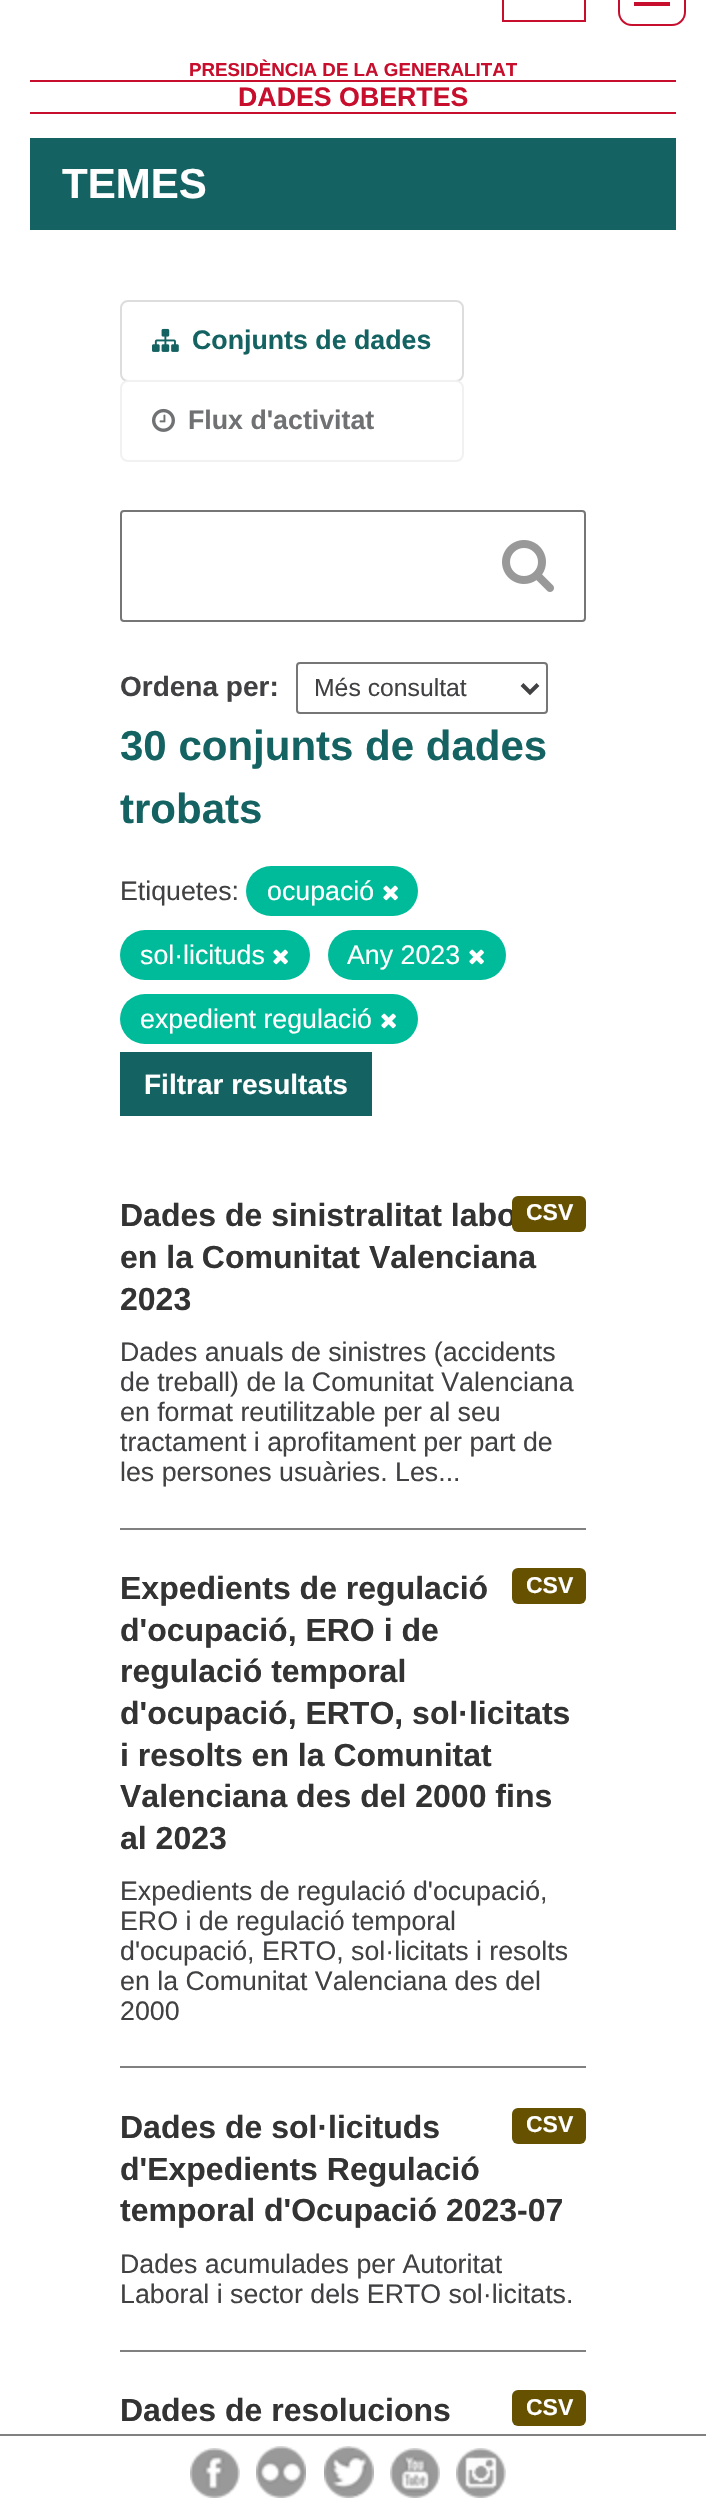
void draw(SkCanvas* canvas) {
    SkPaint paint;
    paint.setAntiAlias(true);
    canvas->clear(0xFFFFFFFF);
    paint.setStyle(SkPaint::kStroke_Style);
    paint.setStrokeWidth(2);
    paint.setColor(0xFFC70F2D);
    canvas->drawRect(SkRect::MakeXYWH(503, -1, 82, 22), paint);
    canvas->drawRoundRect(SkRect::MakeXYWH(619, -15, 66, 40), 13, 13, paint);
    paint.setStyle(SkPaint::kFill_Style);
    canvas->drawRect(SkRect::MakeXYWH(634, 2, 36, 4), paint);
    SkFont font1(fontMgr->matchFamilyStyle("Liberation Sans", SkFontStyle::Bold()), 18.75f);
    font1.setSubpixel(true);
    canvas->drawString("PRESIDÈNCIA DE LA GENERALITAT", 189, 76, font1, paint);
    canvas->drawRect(SkRect::MakeXYWH(30, 80, 646, 2), paint);
    canvas->drawRect(SkRect::MakeXYWH(30, 112, 646, 2), paint);
    SkFont font2(fontMgr->matchFamilyStyle("Liberation Sans", SkFontStyle::Bold()), 26.75f);
    font2.setSubpixel(true);
    canvas->drawString("DADES OBERTES", 238, 106, font2, paint);
    paint.setColor(0xFF146362);
    canvas->drawRect(SkRect::MakeXYWH(30, 138, 646, 92), paint);
    SkFont font3(fontMgr->matchFamilyStyle("Liberation Sans", SkFontStyle::Bold()), 42);
    font3.setSubpixel(true);
    paint.setColor(0xFFFFFFFF);
    canvas->drawString("TEMES", 62, 198, font3, paint);
    paint.setStyle(SkPaint::kStroke_Style);
    paint.setColor(0xFFDDDDDD);
    canvas->drawRoundRect(SkRect::MakeXYWH(121, 301, 342, 80), 7, 7, paint);
    canvas->drawImageRect(SkImages::DeferredFromEncodedData(SkData::MakeFromFileName("img1.png")), SkRect::MakeXYWH(152, 328, 27, 24), SkSamplingOptions());
    paint.setStyle(SkPaint::kFill_Style);
    paint.setColor(0xFF146362);
    canvas->drawString("Conjunts de dades", 192, 349, font2, paint);
    paint.setStyle(SkPaint::kStroke_Style);
    paint.setColor(0xFFF1F1F1);
    canvas->drawRoundRect(SkRect::MakeXYWH(121, 381, 342, 80), 7, 7, paint);
    canvas->drawImageRect(SkImages::DeferredFromEncodedData(SkData::MakeFromFileName("img2.png")), SkRect::MakeXYWH(152, 408, 23, 24), SkSamplingOptions());
    paint.setStyle(SkPaint::kFill_Style);
    paint.setColor(0xFF707173);
    canvas->drawString("Flux d'activitat", 188, 429, font2, paint);
    paint.setStyle(SkPaint::kStroke_Style);
    paint.setColor(0xFF767676);
    canvas->drawRoundRect(SkRect::MakeXYWH(121, 511, 464, 110), 3, 3, paint);
    canvas->drawImageRect(SkImages::DeferredFromEncodedData(SkData::MakeFromFileName("img3.png")), SkRect::MakeXYWH(502, 540, 52, 52), SkSamplingOptions());
    SkFont font4(fontMgr->matchFamilyStyle("Liberation Sans", SkFontStyle::Bold()), 28);
    font4.setSubpixel(true);
    paint.setStyle(SkPaint::kFill_Style);
    paint.setColor(0xFF414042);
    canvas->drawString("Ordena per:", 120, 696, font4, paint);
    paint.setStyle(SkPaint::kStroke_Style);
    paint.setColor(0xFF767676);
    canvas->drawRoundRect(SkRect::MakeXYWH(297, 663, 250, 50), 3, 3, paint);
    paint.setStrokeWidth(4);
    paint.setColor(0xFF414042);
    canvas->drawPath(SkPathBuilder().moveTo(522, 684.5f).lineTo(530, 692.5f).lineTo(538, 684.5f).detach(), paint);
    SkFont font5(fontMgr->matchFamilyStyle("Liberation Sans", SkFontStyle::Normal()), 24.75f);
    font5.setSubpixel(true);
    paint.setStyle(SkPaint::kFill_Style);
    canvas->drawString("Més consultat", 314, 696, font5, paint);
    paint.setColor(0xFF146362);
    canvas->drawString("30 conjunts de dades", 120, 760, font3, paint);
    canvas->drawString("trobats", 120, 823, font3, paint);
    SkFont font6(fontMgr->matchFamilyStyle("Liberation Sans", SkFontStyle::Normal()), 26.75f);
    font6.setSubpixel(true);
    paint.setColor(0xFF414042);
    canvas->drawString("Etiquetes:", 120, 900, font6, paint);
    paint.setColor(0xFF00BB99);
    canvas->drawRoundRect(SkRect::MakeXYWH(246, 866, 172, 50), 25, 25, paint);
    paint.setColor(0xFFFFFFFF);
    canvas->drawString("ocupació", 267, 900, font6, paint);
    canvas->drawImageRect(SkImages::DeferredFromEncodedData(SkData::MakeFromFileName("img4.png")), SkRect::MakeXYWH(383, 885, 15, 16), SkSamplingOptions());
    paint.setColor(0xFF00BB99);
    canvas->drawRoundRect(SkRect::MakeXYWH(120, 930, 190, 50), 25, 25, paint);
    paint.setColor(0xFFFFFFFF);
    canvas->drawString("sol·licituds", 140, 964, font6, paint);
    canvas->drawImageRect(SkImages::DeferredFromEncodedData(SkData::MakeFromFileName("img4.png")), SkRect::MakeXYWH(273, 949, 15, 16), SkSamplingOptions());
    paint.setColor(0xFF00BB99);
    canvas->drawRoundRect(SkRect::MakeXYWH(328, 930, 178, 50), 25, 25, paint);
    paint.setColor(0xFFFFFFFF);
    canvas->drawString("Any 2023", 347, 964, font6, paint);
    canvas->drawImageRect(SkImages::DeferredFromEncodedData(SkData::MakeFromFileName("img4.png")), SkRect::MakeXYWH(469, 949, 15, 16), SkSamplingOptions());
    paint.setColor(0xFF00BB99);
    canvas->drawRoundRect(SkRect::MakeXYWH(120, 994, 298, 50), 25, 25, paint);
    paint.setColor(0xFFFFFFFF);
    canvas->drawString("expedient regulació", 140, 1028, font6, paint);
    canvas->drawImageRect(SkImages::DeferredFromEncodedData(SkData::MakeFromFileName("img4.png")), SkRect::MakeXYWH(381, 1013, 15, 16), SkSamplingOptions());
    paint.setColor(0xFF146362);
    canvas->drawRect(SkRect::MakeXYWH(120, 1052, 252, 64), paint);
    paint.setColor(0xFFFFFFFF);
    canvas->drawString("Filtrar resultats", 144, 1094, font4, paint);
    paint.setColor(0xFF808080);
    canvas->drawRect(SkRect::MakeXYWH(120, 1528, 466, 2), paint);
    SkFont font7(fontMgr->matchFamilyStyle("Liberation Sans", SkFontStyle::Bold()), 32);
    font7.setSubpixel(true);
    paint.setColor(0xFF333333);
    canvas->drawString("Dades de sinistralitat labo", 120, 1226, font7, paint);
    canvas->drawString("en la Comunitat Valenciana", 120, 1268, font7, paint);
    canvas->drawString("2023", 120, 1310, font7, paint);
    paint.setColor(0xFF655100);
    canvas->drawRoundRect(SkRect::MakeXYWH(512, 1196, 74, 36), 6, 6, paint);
    SkFont font8(fontMgr->matchFamilyStyle("Liberation Sans", SkFontStyle::Bold()), 23);
    font8.setSubpixel(true);
    paint.setColor(0xFFFFFFFF);
    canvas->drawString("CSV", 526, 1220, font8, paint);
    paint.setColor(0xFF414042);
    canvas->drawString("Dades anuals de sinistres (accidents", 120, 1361, font6, paint);
    canvas->drawString("de treball) de la Comunitat Valenciana", 120, 1391, font6, paint);
    canvas->drawString("en format reutilitzable per al seu", 120, 1421, font6, paint);
    canvas->drawString("tractament i aprofitament per part de", 120, 1451, font6, paint);
    canvas->drawString("les persones usuàries. Les...", 120, 1481, font6, paint);
    paint.setColor(0xFF808080);
    canvas->drawRect(SkRect::MakeXYWH(120, 2066, 466, 2), paint);
    paint.setColor(0xFF333333);
    canvas->drawString("Expedients de regulació", 120, 1599, font7, paint);
    canvas->drawString("d'ocupació, ERO i de", 120, 1641, font7, paint);
    canvas->drawString("regulació temporal", 120, 1682, font7, paint);
    canvas->drawString("d'ocupació, ERTO, sol·licitats", 120, 1724, font7, paint);
    canvas->drawString("i resolts en la Comunitat", 120, 1766, font7, paint);
    canvas->drawString("Valenciana des del 2000 fins", 120, 1807, font7, paint);
    canvas->drawString("al 2023", 120, 1849, font7, paint);
    paint.setColor(0xFF655100);
    canvas->drawRoundRect(SkRect::MakeXYWH(512, 1568, 74, 36), 6, 6, paint);
    paint.setColor(0xFFFFFFFF);
    canvas->drawString("CSV", 526, 1593, font8, paint);
    paint.setColor(0xFF414042);
    canvas->drawString("Expedients de regulació d'ocupació,", 120, 1900, font6, paint);
    canvas->drawString("ERO i de regulació temporal", 120, 1930, font6, paint);
    canvas->drawString("d'ocupació, ERTO, sol·licitats i resolts", 120, 1960, font6, paint);
    canvas->drawString("en la Comunitat Valenciana des del", 120, 1990, font6, paint);
    canvas->drawString("2000", 120, 2020, font6, paint);
    paint.setColor(0xFF808080);
    canvas->drawRect(SkRect::MakeXYWH(120, 2350, 466, 2), paint);
    paint.setColor(0xFF333333);
    canvas->drawString("Dades de sol·licituds", 120, 2138, font7, paint);
    canvas->drawString("d'Expedients Regulació", 120, 2180, font7, paint);
    canvas->drawString("temporal d'Ocupació 2023-07", 120, 2221, font7, paint);
    paint.setColor(0xFF655100);
    canvas->drawRoundRect(SkRect::MakeXYWH(512, 2108, 74, 36), 6, 6, paint);
    paint.setColor(0xFFFFFFFF);
    canvas->drawString("CSV", 526, 2132, font8, paint);
    paint.setColor(0xFF414042);
    canvas->drawString("Dades acumulades per Autoritat", 120, 2273, font6, paint);
    canvas->drawString("Laboral i sector dels ERTO sol·licitats.", 120, 2303, font6, paint);
    paint.setColor(0xFF333333);
    canvas->drawString("Dades de resolucions", 120, 2421, font7, paint);
    paint.setColor(0xFF655100);
    canvas->drawRoundRect(SkRect::MakeXYWH(512, 2390, 74, 36), 6, 6, paint);
    paint.setColor(0xFFFFFFFF);
    canvas->drawString("CSV", 526, 2415, font8, paint);
    paint.setColor(0xFF808080);
    canvas->drawRect(SkRect::MakeXYWH(0, 2434, 706, 2), paint);
    canvas->drawImageRect(SkImages::DeferredFromEncodedData(SkData::MakeFromFileName("img5.png")), SkRect::MakeXYWH(190, 2448, 50, 50), SkSamplingOptions());
    canvas->drawImageRect(SkImages::DeferredFromEncodedData(SkData::MakeFromFileName("img6.png")), SkRect::MakeXYWH(256, 2446, 50, 52), SkSamplingOptions());
    canvas->drawImageRect(SkImages::DeferredFromEncodedData(SkData::MakeFromFileName("img7.png")), SkRect::MakeXYWH(324, 2446, 50, 52), SkSamplingOptions());
    canvas->drawImageRect(SkImages::DeferredFromEncodedData(SkData::MakeFromFileName("img8.png")), SkRect::MakeXYWH(390, 2448, 50, 50), SkSamplingOptions());
    canvas->drawImageRect(SkImages::DeferredFromEncodedData(SkData::MakeFromFileName("img9.png")), SkRect::MakeXYWH(456, 2448, 50, 50), SkSamplingOptions());
}
